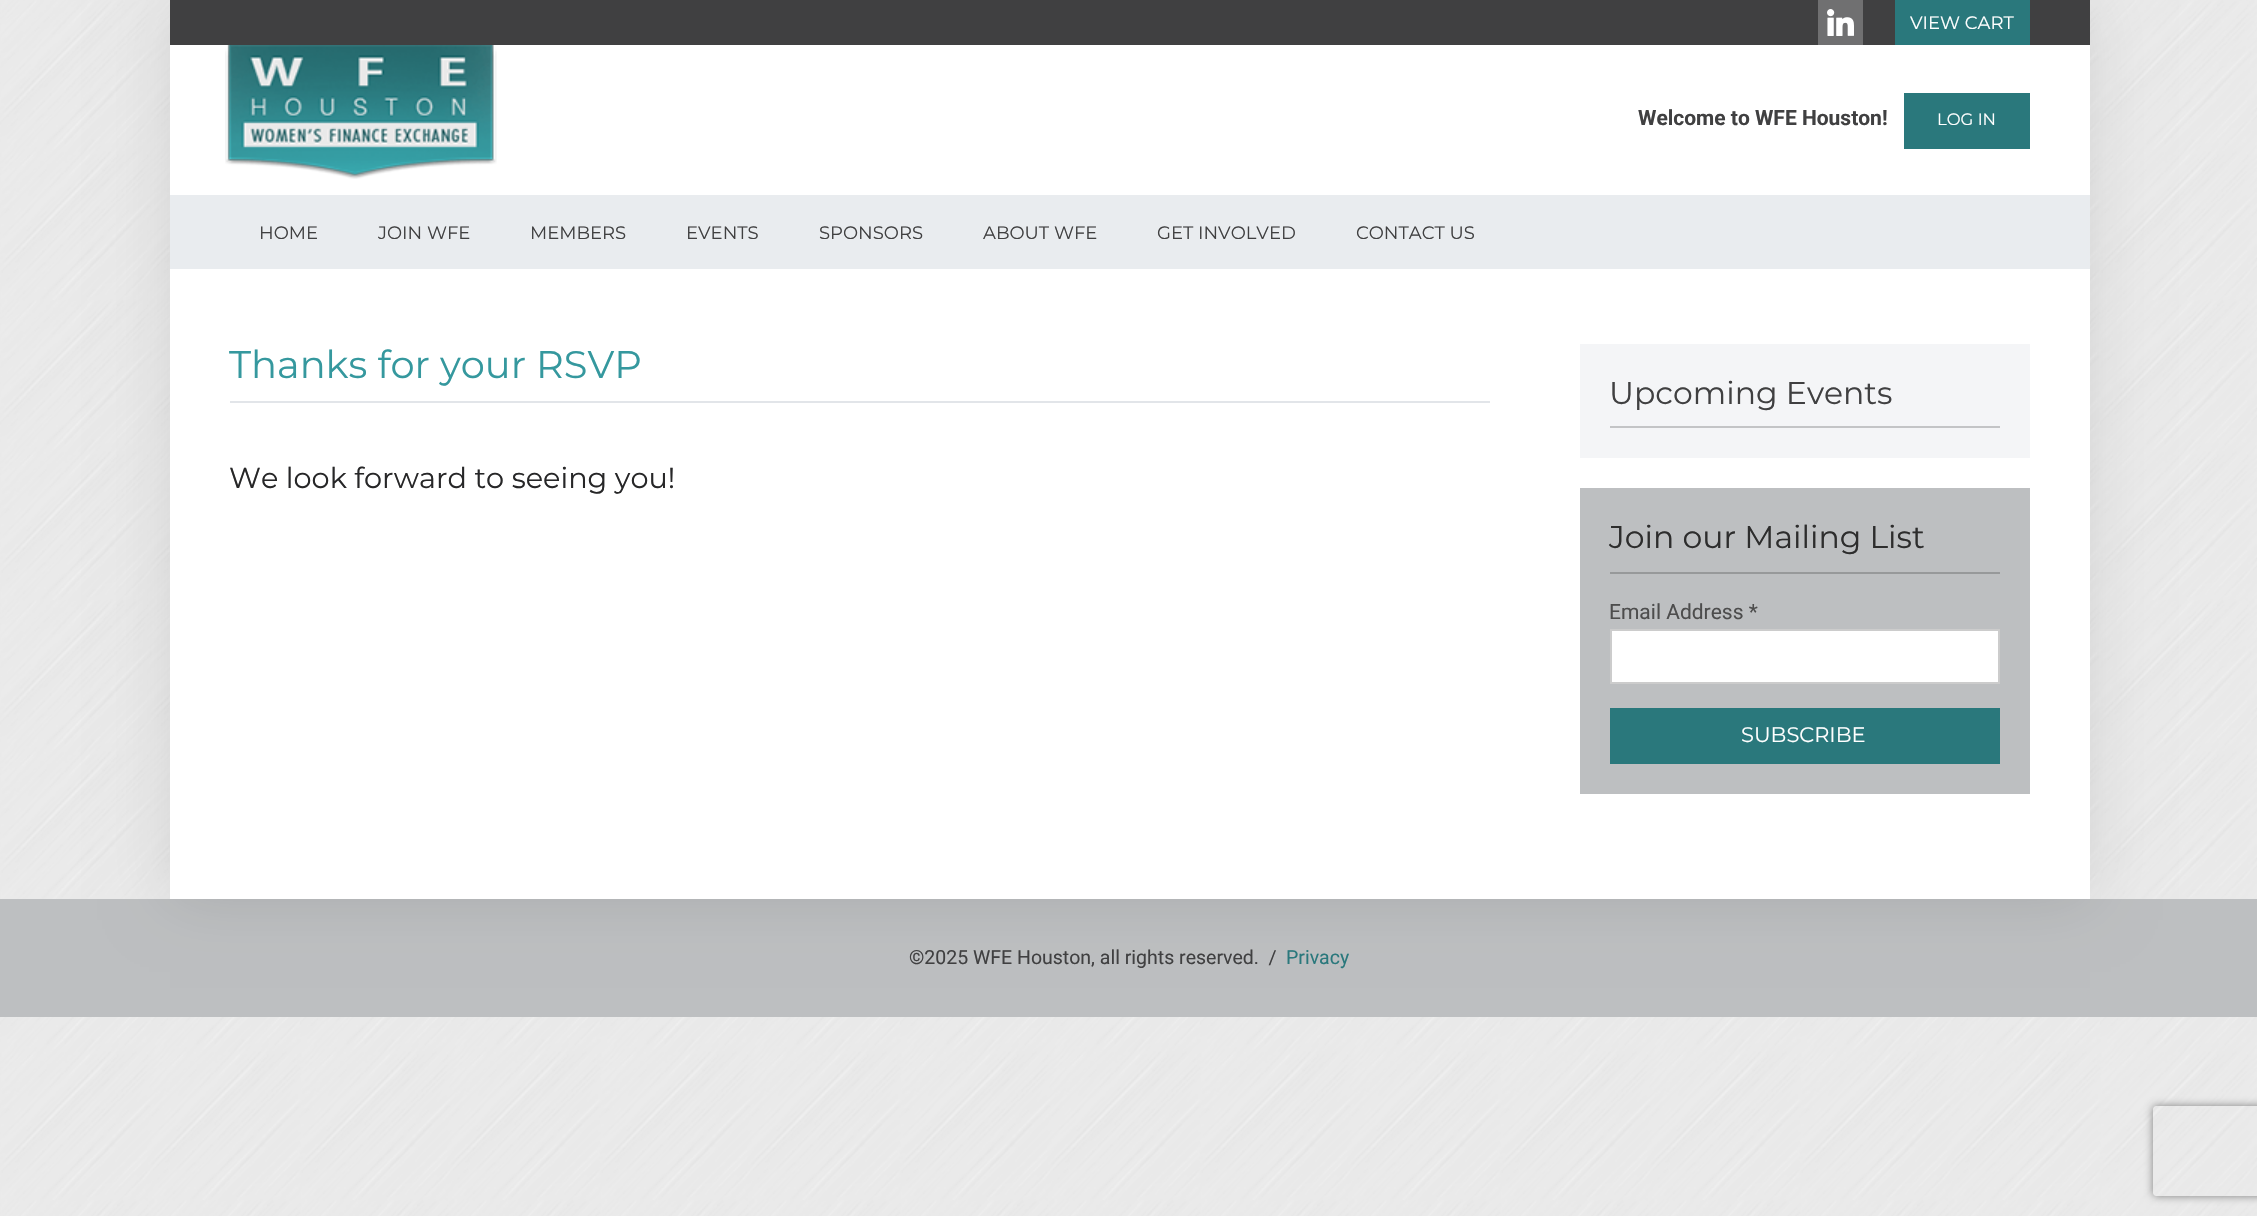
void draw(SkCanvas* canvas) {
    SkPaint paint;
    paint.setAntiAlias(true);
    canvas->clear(0xFFFFFFFF);
    canvas->drawImageRect(SkImages::DeferredFromEncodedData(SkData::MakeFromFileName("img1.png")), SkRect::MakeXYWH(0, 0, 2257, 1216), SkSamplingOptions());
    paint.setColor(0xFFBDBFC1);
    canvas->drawRect(SkRect::MakeXYWH(0, 899, 2257, 118), paint);
    paint.setColor(0x1A000000);
    paint.setMaskFilter(SkMaskFilter::MakeBlur(kNormal_SkBlurStyle, 30));
    canvas->drawRect(SkRect::MakeXYWH(170, 0, 1920, 899), paint);
    paint.setMaskFilter(nullptr);
    paint.setColor(0xFFFFFFFF);
    canvas->drawRect(SkRect::MakeXYWH(170, 45, 1920, 854), paint);
    paint.setColor(0xFF404041);
    canvas->drawRect(SkRect::MakeXYWH(170, 0, 1920, 45), paint);
    paint.setColor(0xFF707071);
    canvas->drawRect(SkRect::MakeXYWH(1818, 0, 45, 45), paint);
    canvas->drawImageRect(SkImages::DeferredFromEncodedData(SkData::MakeFromFileName("img2.png")), SkRect::MakeXYWH(1827, 9, 27, 27), SkSamplingOptions());
    paint.setColor(0xFF2A787C);
    canvas->drawRect(SkRect::MakeXYWH(1895, 0, 135, 45), paint);
    SkFont font1(fontMgr->matchFamilyStyle("Montserrat", SkFontStyle::Normal()), 18);
    font1.setSubpixel(true);
    paint.setColor(0xFFFFFFFF);
    canvas->drawString("VIEW CART", 1910, 29, font1, paint);
    canvas->drawImageRect(SkImages::DeferredFromEncodedData(SkData::MakeFromFileName("img3.png")), SkRect::MakeXYWH(225, 45, 272, 134), SkSamplingOptions());
    SkFont font2(fontMgr->matchFamilyStyle("Roboto", SkFontStyle::Bold()), 21);
    font2.setSubpixel(true);
    paint.setColor(0xFF404041);
    canvas->drawString("Welcome to WFE Houston!", 1638, 125, font2, paint);
    paint.setColor(0xFF2A787C);
    canvas->drawRect(SkRect::MakeXYWH(1904, 93, 126, 56), paint);
    SkFont font3(fontMgr->matchFamilyStyle("Montserrat", SkFontStyle::Normal()), 16.5f);
    font3.setSubpixel(true);
    paint.setColor(0xFFFFFFFF);
    canvas->drawString("LOG IN", 1937, 125, font3, paint);
    paint.setColor(0xFFE9ECEF);
    canvas->drawRect(SkRect::MakeXYWH(170, 195, 1920, 74), paint);
    paint.setColor(0xFF404041);
    canvas->drawString("HOME", 259, 239, font1, paint);
    canvas->drawString("JOIN WFE", 378, 239, font1, paint);
    canvas->drawString("MEMBERS", 530, 239, font1, paint);
    canvas->drawString("EVENTS", 686, 239, font1, paint);
    canvas->drawString("SPONSORS", 819, 239, font1, paint);
    canvas->drawString("ABOUT WFE", 983, 239, font1, paint);
    canvas->drawString("GET INVOLVED", 1157, 239, font1, paint);
    canvas->drawString("CONTACT US", 1356, 239, font1, paint);
    paint.setColor(0xFFE2E5E9);
    canvas->drawRect(SkRect::MakeXYWH(230, 401, 1260, 2), paint);
    SkFont font4(fontMgr->matchFamilyStyle("Montserrat", SkFontStyle::Normal()), 38.4f);
    font4.setSubpixel(true);
    paint.setColor(0xFF35989E);
    canvas->drawString("Thanks for your RSVP", 229, 378, font4, paint);
    SkFont font5(fontMgr->matchFamilyStyle("Montserrat", SkFontStyle::Normal()), 28.75f);
    font5.setSubpixel(true);
    paint.setColor(0xFF272728);
    canvas->drawString("We look forward to seeing you!", 229, 488, font5, paint);
    paint.setColor(0xFFF4F5F7);
    canvas->drawRect(SkRect::MakeXYWH(1580, 344, 450, 114), paint);
    paint.setColor(0xFFC3C4C6);
    canvas->drawRect(SkRect::MakeXYWH(1610, 426, 390, 2), paint);
    SkFont font6(fontMgr->matchFamilyStyle("Montserrat", SkFontStyle::Normal()), 31.5f);
    font6.setSubpixel(true);
    paint.setColor(0xFF404041);
    canvas->drawString("Upcoming Events", 1609, 404, font6, paint);
    paint.setColor(0xFFBDBFC1);
    canvas->drawRect(SkRect::MakeXYWH(1580, 488, 450, 306), paint);
    paint.setColor(0xFF97999A);
    canvas->drawRect(SkRect::MakeXYWH(1610, 572, 390, 2), paint);
    paint.setColor(0xFF2D2D2D);
    canvas->drawString("Join our Mailing List", 1609, 548, font6, paint);
    SkFont font7(fontMgr->matchFamilyStyle("Roboto", SkFontStyle::Normal()), 21);
    font7.setSubpixel(true);
    paint.setColor(0xFF4D4D4D);
    canvas->drawString("Email Address *", 1609, 619, font7, paint);
    paint.setColor(0xFFFFFFFF);
    canvas->drawRect(SkRect::MakeXYWH(1611, 630, 388, 53), paint);
    paint.setStyle(SkPaint::kStroke_Style);
    paint.setStrokeWidth(2);
    paint.setColor(0xFFCCCCCC);
    canvas->drawRect(SkRect::MakeXYWH(1611, 630, 388, 53), paint);
    paint.setStyle(SkPaint::kFill_Style);
    paint.setColor(0xFF2A787C);
    canvas->drawRect(SkRect::MakeXYWH(1610, 708, 390, 56), paint);
    SkFont font8(fontMgr->matchFamilyStyle("Montserrat", SkFontStyle::Normal()), 21);
    font8.setSubpixel(true);
    paint.setColor(0xFFFFFFFF);
    canvas->drawString("SUBSCRIBE", 1741, 742, font8, paint);
    SkFont font9(fontMgr->matchFamilyStyle("Roboto", SkFontStyle::Normal()), 19.5f);
    font9.setSubpixel(true);
    paint.setColor(0xFF404041);
    canvas->drawString("©2025 WFE Houston, all rights reserved.  /", 909, 964, font9, paint);
    paint.setColor(0xFF2A787C);
    canvas->drawString("Privacy", 1286, 964, font9, paint);
    canvas->save();
    canvas->clipPath(SkPathBuilder(SkPathFillType::kEvenOdd).moveTo(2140, 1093).lineTo(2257, 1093).lineTo(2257, 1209).lineTo(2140, 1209).close().moveTo(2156, 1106).lineTo(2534, 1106).cubicTo(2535.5f, 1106, 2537, 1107.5f, 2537, 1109).lineTo(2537, 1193).cubicTo(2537, 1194.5f, 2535.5f, 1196, 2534, 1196).lineTo(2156, 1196).cubicTo(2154.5f, 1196, 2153, 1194.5f, 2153, 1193).lineTo(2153, 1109).cubicTo(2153, 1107.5f, 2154.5f, 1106, 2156, 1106).close().detach(), true);
    paint.setColor(0xFF808080);
    paint.setMaskFilter(SkMaskFilter::MakeBlur(kNormal_SkBlurStyle, 4));
    canvas->drawRoundRect(SkRect::MakeXYWH(2153, 1106, 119, 90), 3, 3, paint);
    paint.setMaskFilter(nullptr);
    canvas->restore();
}
